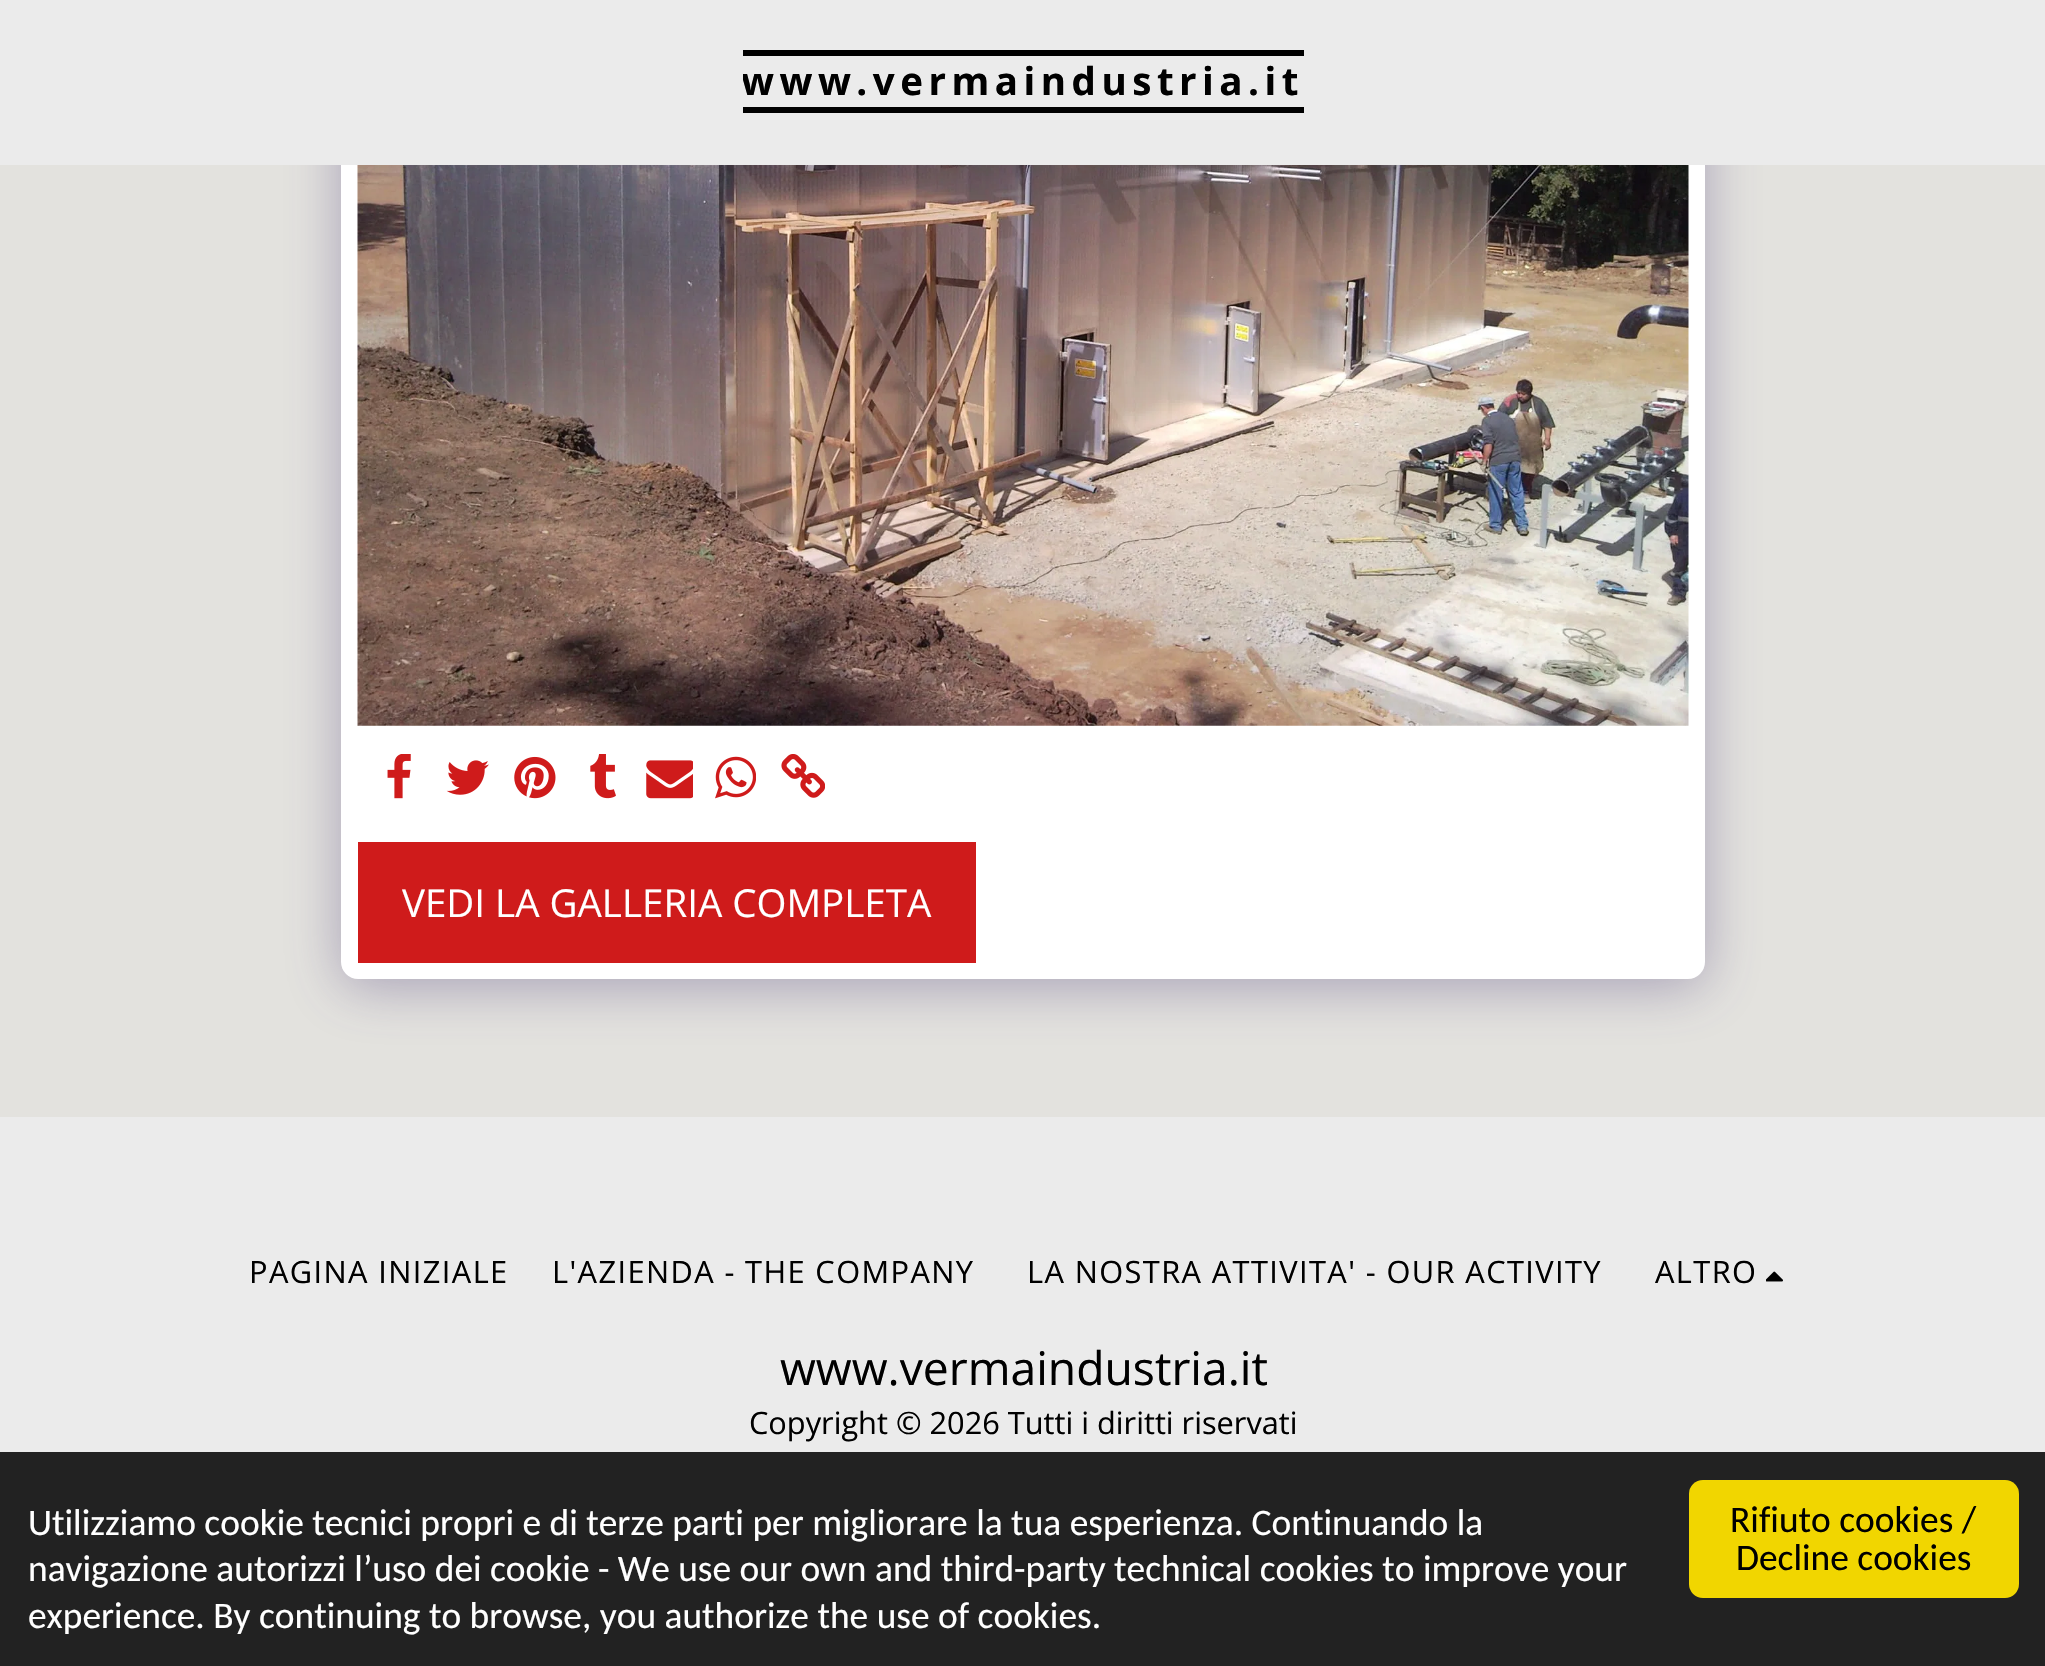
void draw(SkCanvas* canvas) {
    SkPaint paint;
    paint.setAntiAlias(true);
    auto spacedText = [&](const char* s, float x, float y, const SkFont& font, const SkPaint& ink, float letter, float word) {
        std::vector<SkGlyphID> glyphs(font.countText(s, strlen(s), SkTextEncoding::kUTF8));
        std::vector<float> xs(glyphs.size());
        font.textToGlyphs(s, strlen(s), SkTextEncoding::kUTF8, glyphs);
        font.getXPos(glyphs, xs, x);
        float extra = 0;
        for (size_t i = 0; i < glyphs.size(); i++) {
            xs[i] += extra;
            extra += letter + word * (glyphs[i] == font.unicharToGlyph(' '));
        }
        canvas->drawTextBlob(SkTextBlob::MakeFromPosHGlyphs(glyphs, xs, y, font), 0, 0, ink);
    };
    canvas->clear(0xFFE3E2DE);
    paint.setColor(0x664D3F7A);
    paint.setMaskFilter(SkMaskFilter::MakeBlur(kNormal_SkBlurStyle, 27.5f));
    canvas->drawRoundRect(SkRect::MakeXYWH(341, -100, 1364, 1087), 17, 17, paint);
    paint.setMaskFilter(nullptr);
    paint.setColor(0xFFFFFFFF);
    canvas->drawRoundRect(SkRect::MakeXYWH(341, -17, 1364, 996), 17, 17, paint);
    paint.setColor(0xFFEBEBEB);
    canvas->drawRect(SkRect::MakeXYWH(0, 0, 2045, 165), paint);
    paint.setColor(0xFF000000);
    canvas->drawRect(SkRect::MakeXYWH(743, 50, 561, 6), paint);
    canvas->drawRect(SkRect::MakeXYWH(743, 107, 561, 6), paint);
    canvas->save();
    canvas->clipRect(SkRect::MakeXYWH(743, 55, 561, 52));
    SkFont font1(fontMgr->matchFamilyStyle("Open Sans", SkFontStyle::Bold()), 38.5f);
    font1.setSubpixel(true);
    spacedText("www.vermaindustria.it", 741, 95, font1, paint, 5.5f, 0);
    canvas->restore();
    canvas->drawImageRect(SkImages::DeferredFromEncodedData(SkData::MakeFromFileName("img1.png")), SkRect::MakeXYWH(357, 165, 1332, 561), SkSamplingOptions());
    canvas->drawImageRect(SkImages::DeferredFromEncodedData(SkData::MakeFromFileName("img2.png")), SkRect::MakeXYWH(387, 754, 24, 45), SkSamplingOptions());
    canvas->drawImageRect(SkImages::DeferredFromEncodedData(SkData::MakeFromFileName("img3.png")), SkRect::MakeXYWH(446, 760, 43, 35), SkSamplingOptions());
    canvas->drawImageRect(SkImages::DeferredFromEncodedData(SkData::MakeFromFileName("img4.png")), SkRect::MakeXYWH(514, 756, 42, 43), SkSamplingOptions());
    canvas->drawImageRect(SkImages::DeferredFromEncodedData(SkData::MakeFromFileName("img5.png")), SkRect::MakeXYWH(590, 754, 26, 45), SkSamplingOptions());
    canvas->drawImageRect(SkImages::DeferredFromEncodedData(SkData::MakeFromFileName("img6.png")), SkRect::MakeXYWH(646, 760, 47, 39), SkSamplingOptions());
    canvas->drawImageRect(SkImages::DeferredFromEncodedData(SkData::MakeFromFileName("img7.png")), SkRect::MakeXYWH(715, 756, 41, 43), SkSamplingOptions());
    canvas->drawImageRect(SkImages::DeferredFromEncodedData(SkData::MakeFromFileName("img8.png")), SkRect::MakeXYWH(781, 754, 44, 44), SkSamplingOptions());
    paint.setColor(0xFFCF1B1B);
    canvas->drawRect(SkRect::MakeXYWH(358, 842, 618, 121), paint);
    SkFont font2(fontMgr->matchFamilyStyle("Open Sans", SkFontStyle::Normal()), 38.5f);
    font2.setSubpixel(true);
    paint.setColor(0xFFFFFFFF);
    canvas->drawString("VEDI LA GALLERIA COMPLETA", 402, 917, font2, paint);
    paint.setColor(0xFFEBEBEB);
    canvas->drawRect(SkRect::MakeXYWH(0, 1117, 2045, 335), paint);
    SkFont font3(fontMgr->matchFamilyStyle("Open Sans", SkFontStyle::Normal()), 30.75f);
    font3.setSubpixel(true);
    paint.setColor(0xFF000000);
    spacedText("PAGINA INIZIALE", 249, 1283, font3, paint, 1.4f, 0);
    spacedText("L'AZIENDA - THE COMPANY", 552, 1283, font3, paint, 1.4f, 0);
    spacedText("LA NOSTRA ATTIVITA' - OUR ACTIVITY", 1027, 1283, font3, paint, 1.4f, 0);
    spacedText("ALTRO", 1655, 1283, font3, paint, 1.4f, 0);
    canvas->drawImageRect(SkImages::DeferredFromEncodedData(SkData::MakeFromFileName("img9.png")), SkRect::MakeXYWH(1766, 1271, 17, 11), SkSamplingOptions());
    SkFont font4(fontMgr->matchFamilyStyle("Open Sans", SkFontStyle::Normal()), 46.25f);
    font4.setSubpixel(true);
    canvas->drawString("www.vermaindustria.it", 780, 1385, font4, paint);
    canvas->drawString("Copyright © 2026 Tutti i diritti riservati", 749, 1434, font3, paint);
    paint.setColor(0xFF222222);
    canvas->drawRect(SkRect::MakeXYWH(0, 1452, 2045, 214), paint);
    SkFont font5(fontMgr->matchFamilyStyle("Carlito", SkFontStyle::Normal()), 37.4f);
    font5.setSubpixel(true);
    paint.setColor(0xFFFFFFFF);
    canvas->drawString("Utilizziamo cookie tecnici propri e di terze parti per migliorare la tua esperienza. Continuando la", 28, 1535, font5, paint);
    canvas->drawString("navigazione autorizzi l’uso dei cookie - We use our own and third-party technical cookies to improve your", 28, 1581, font5, paint);
    canvas->drawString("experience. By continuing to browse, you authorize the use of cookies.", 28, 1628, font5, paint);
    paint.setColor(0xFFF1D600);
    canvas->drawRoundRect(SkRect::MakeXYWH(1689, 1480, 330, 118), 14, 14, paint);
    paint.setColor(0xFF000000);
    canvas->drawString("Rifiuto cookies /", 1730, 1532, font5, paint);
    canvas->drawString("Decline cookies", 1736, 1570, font5, paint);
}
